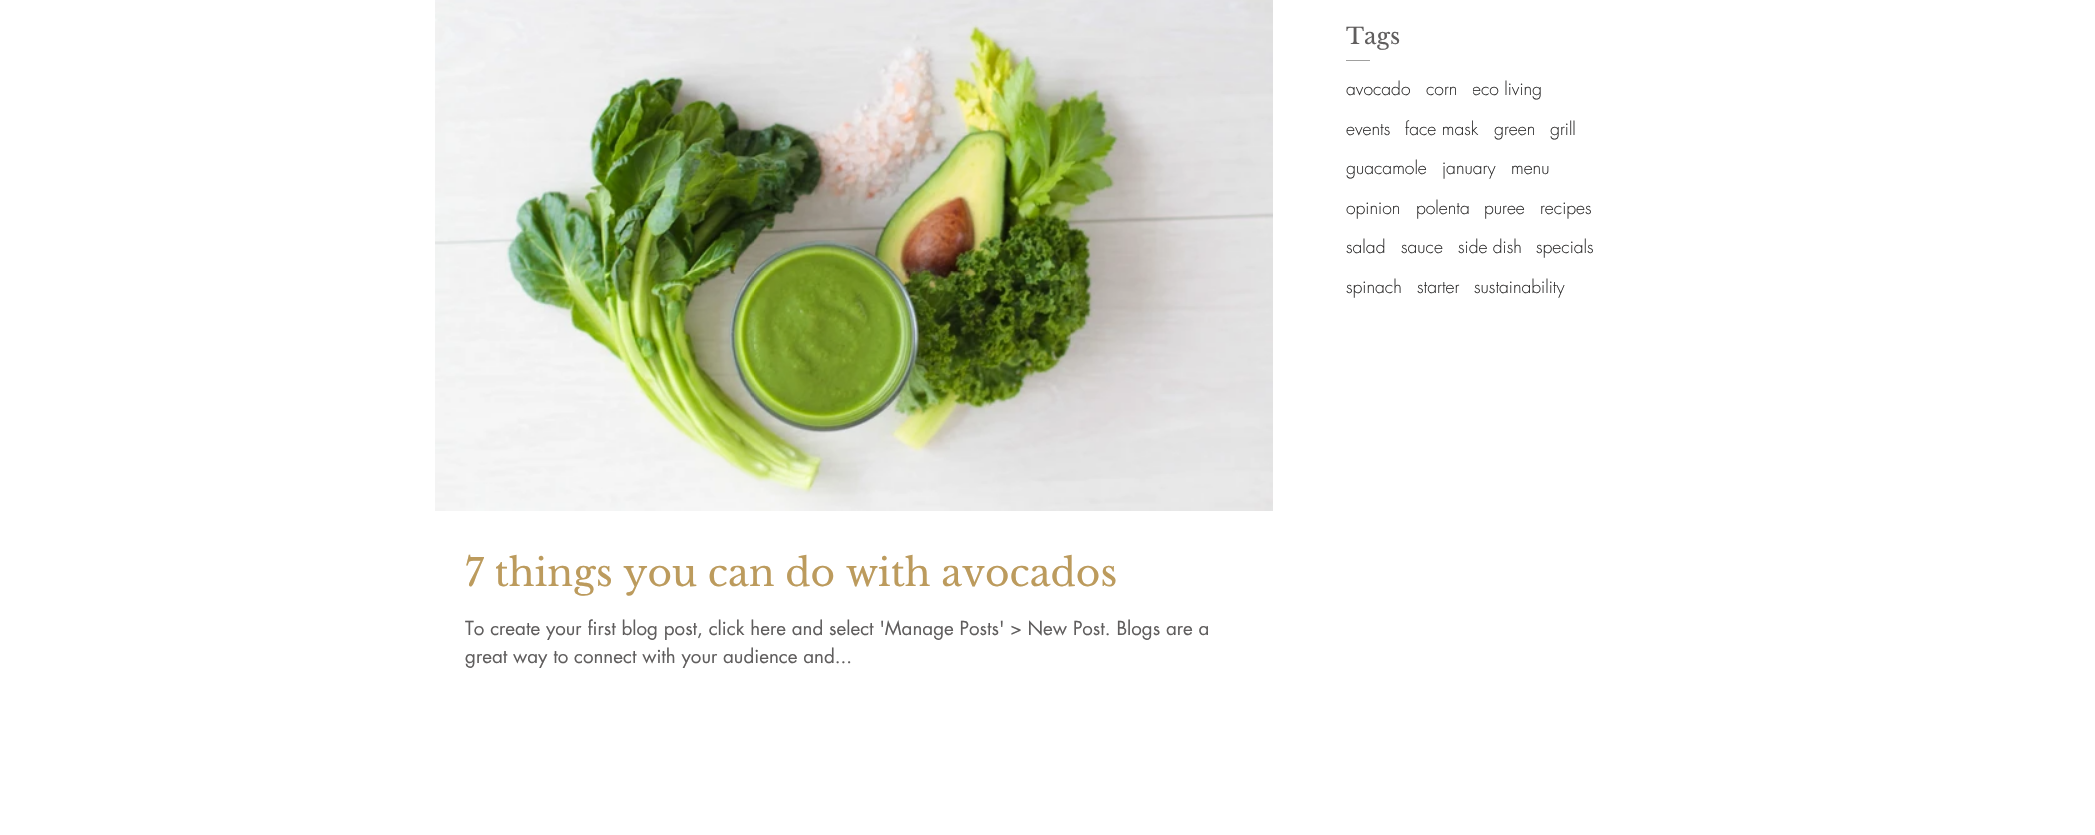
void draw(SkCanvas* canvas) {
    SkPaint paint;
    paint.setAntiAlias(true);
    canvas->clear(0xFFFFFFFF);
    SkFont font1(fontMgr->matchFamilyStyle("Libre Baskerville", SkFontStyle::Normal()), 22.5f);
    font1.setSubpixel(true);
    paint.setColor(0xFF605E5E);
    canvas->drawString("Tags", 1346, 44, font1, paint);
    paint.setColor(0xFFA0A09F);
    canvas->drawRect(SkRect::MakeXYWH(1346, 60, 24, 1), paint);
    SkFont font2(fontMgr->matchFamilyStyle("futura", SkFontStyle(300, SkFontStyle::kNormal_Width, SkFontStyle::kUpright_Slant)), 17.5f);
    font2.setSubpixel(true);
    paint.setColor(0xFF2F2E2E);
    canvas->drawString("avocado", 1346, 95, font2, paint);
    canvas->drawString("corn", 1426, 95, font2, paint);
    canvas->save();
    canvas->clipRect(SkRect::MakeXYWH(1473, 78, 70, 25));
    canvas->drawString("eco living", 1472, 95, font2, paint);
    canvas->restore();
    canvas->drawString("events", 1346, 135, font2, paint);
    canvas->drawString("face mask", 1405, 135, font2, paint);
    canvas->drawString("green", 1494, 135, font2, paint);
    canvas->drawString("grill", 1550, 135, font2, paint);
    canvas->drawString("guacamole", 1346, 174, font2, paint);
    canvas->drawString("january", 1442, 174, font2, paint);
    canvas->drawString("menu", 1511, 174, font2, paint);
    canvas->drawString("opinion", 1346, 214, font2, paint);
    canvas->drawString("polenta", 1416, 214, font2, paint);
    canvas->drawString("puree", 1484, 214, font2, paint);
    canvas->drawString("recipes", 1540, 214, font2, paint);
    canvas->drawString("salad", 1346, 253, font2, paint);
    canvas->drawString("sauce", 1401, 253, font2, paint);
    canvas->drawString("side dish", 1458, 253, font2, paint);
    canvas->drawString("specials", 1536, 253, font2, paint);
    canvas->drawString("spinach", 1346, 293, font2, paint);
    canvas->drawString("starter", 1417, 293, font2, paint);
    canvas->drawString("sustainability", 1474, 293, font2, paint);
    canvas->drawImageRect(SkImages::DeferredFromEncodedData(SkData::MakeFromFileName("img1.png")), SkRect::MakeXYWH(435, 0, 838, 511), SkSamplingOptions());
    SkFont font3(fontMgr->matchFamilyStyle("Libre Baskerville", SkFontStyle::Normal()), 37.5f);
    font3.setSubpixel(true);
    paint.setColor(0xFFBC9B5D);
    canvas->drawString("7 things you can do with avocados", 465, 586, font3, paint);
    SkFont font4(fontMgr->matchFamilyStyle("futura", SkFontStyle::Normal()), 18.75f);
    font4.setSubpixel(true);
    paint.setColor(0xFF605E5E);
    canvas->drawString("To create your first blog post, click here and select 'Manage Posts' > New Post. Blogs are a", 465, 635, font4, paint);
    canvas->drawString("great way to connect with your audience and...", 465, 663, font4, paint);
}
